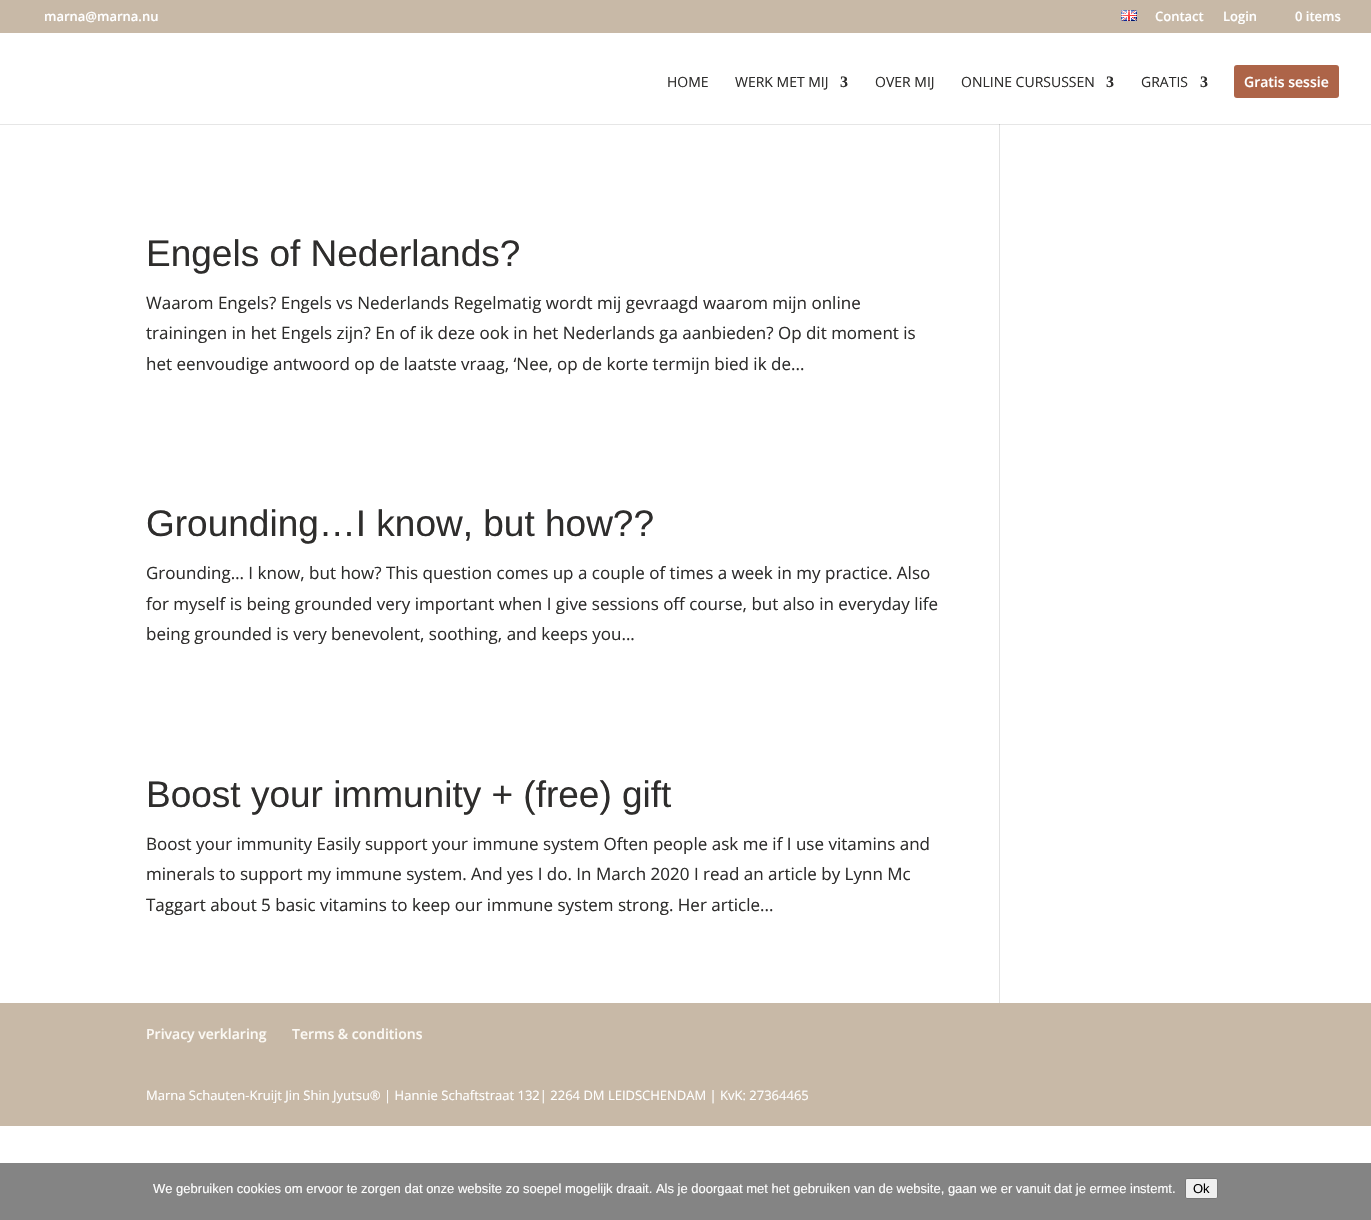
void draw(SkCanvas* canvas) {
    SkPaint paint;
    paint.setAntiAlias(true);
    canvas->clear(0xFFFFFFFF);
    paint.setColor(0xFFE6E6E6);
    canvas->drawRect(SkRect::MakeXYWH(0, 124, 1371, 1), paint);
    paint.setColor(0xFFC8B9A7);
    canvas->drawRect(SkRect::MakeXYWH(0, 0, 1371, 33), paint);
    SkFont font1(fontMgr->matchFamilyStyle("Open Sans", SkFontStyle(600, SkFontStyle::kNormal_Width, SkFontStyle::kUpright_Slant)), 13);
    font1.setSubpixel(true);
    paint.setColor(0xFFFFFFFF);
    canvas->drawString("marna@marna.nu", 44, 21, font1, paint);
    canvas->drawImageRect(SkImages::DeferredFromEncodedData(SkData::MakeFromFileName("img1.png")), SkRect::MakeXYWH(1121, 10, 16, 11), SkSamplingOptions());
    canvas->drawString("Contact", 1155, 21, font1, paint);
    canvas->drawString("Login", 1223, 21, font1, paint);
    canvas->drawString("0 items", 1295, 21, font1, paint);
    SkFont font2(fontMgr->matchFamilyStyle("Open Sans", SkFontStyle::Normal()), 14);
    font2.setSubpixel(true);
    paint.setColor(0xFF2E2D2C);
    canvas->drawString("HOME", 667, 87, font2, paint);
    canvas->drawString("WERK MET MIJ", 735, 87, font2, paint);
    SkFont font3(fontMgr->matchFamilyStyle("Liberation Serif", SkFontStyle::Bold()), 16);
    font3.setSubpixel(true);
    canvas->drawString("3", 840, 87, font3, paint);
    canvas->drawString("OVER MIJ", 875, 87, font2, paint);
    canvas->drawString("ONLINE CURSUSSEN", 961, 87, font2, paint);
    canvas->drawString("3", 1106, 87, font3, paint);
    canvas->drawString("GRATIS", 1141, 87, font2, paint);
    canvas->drawString("3", 1200, 87, font3, paint);
    paint.setColor(0xFFAD6448);
    canvas->drawRoundRect(SkRect::MakeXYWH(1234, 65, 105, 33), 3, 3, paint);
    SkFont font4(fontMgr->matchFamilyStyle("Open Sans", SkFontStyle(600, SkFontStyle::kNormal_Width, SkFontStyle::kUpright_Slant)), 14);
    font4.setSubpixel(true);
    paint.setColor(0xFFFFFFFF);
    canvas->drawString("Gratis sessie", 1244, 87, font4, paint);
    SkFont font5(fontMgr->matchFamilyStyle("Liberation Sans", SkFontStyle::Normal()), 37);
    font5.setSubpixel(true);
    paint.setColor(0xFF2E2D2C);
    canvas->drawString("Engels of Nederlands?", 146, 266, font5, paint);
    SkFont font6(fontMgr->matchFamilyStyle("Open Sans", SkFontStyle::Normal()), 17);
    font6.setSubpixel(true);
    canvas->drawString("Waarom Engels? Engels vs Nederlands Regelmatig wordt mij gevraagd waarom mijn online", 146, 309, font6, paint);
    canvas->drawString("trainingen in het Engels zijn? En of ik deze ook in het Nederlands ga aanbieden? Op dit moment is", 146, 339, font6, paint);
    canvas->drawString("het eenvoudige antwoord op de laatste vraag, ‘Nee, op de korte termijn bied ik de...", 146, 370, font6, paint);
    canvas->drawString("Grounding…I know, but how?\077", 146, 536, font5, paint);
    canvas->drawString("Grounding… I know, but how? This question comes up a couple of times a week in my practice. Also", 146, 579, font6, paint);
    canvas->drawString("for myself is being grounded very important when I give sessions off course, but also in everyday life", 146, 610, font6, paint);
    canvas->drawString("being grounded is very benevolent, soothing, and keeps you...", 146, 640, font6, paint);
    canvas->drawString("Boost your immunity + (free) gift", 146, 807, font5, paint);
    canvas->drawString("Boost your immunity Easily support your immune system Often people ask me if I use vitamins and", 146, 850, font6, paint);
    canvas->drawString("minerals to support my immune system. And yes I do. In March 2020 I read an article by Lynn Mc", 146, 880, font6, paint);
    canvas->drawString("Taggart about 5 basic vitamins to keep our immune system strong. Her article...", 146, 911, font6, paint);
    paint.setColor(0xFFE2E2E2);
    canvas->drawRect(SkRect::MakeXYWH(999, 125, 1, 878), paint);
    paint.setColor(0xFFCBCBCB);
    canvas->drawRect(SkRect::MakeXYWH(999, 124, 1, 1), paint);
    paint.setColor(0xFFC8B9A7);
    canvas->drawRect(SkRect::MakeXYWH(0, 1003, 1371, 123), paint);
    paint.setColor(0xFFFCF9F4);
    canvas->drawString("Privacy verklaring", 146, 1039, font4, paint);
    canvas->drawString("Terms & conditions", 292, 1039, font4, paint);
    SkFont font7(fontMgr->matchFamilyStyle("Open Sans", SkFontStyle::Normal()), 13);
    font7.setSubpixel(true);
    paint.setColor(0xFFFFFFFF);
    canvas->drawString("Marna Schauten-Kruijt Jin Shin Jyutsu® | Hannie Schaftstraat 132| 2264 DM LEIDSCHENDAM | KvK: 27364465", 146, 1100, font7, paint);
    paint.setColor(0xFF848484);
    canvas->drawRect(SkRect::MakeXYWH(0, 1163, 1371, 57), paint);
    SkFont font8(fontMgr->matchFamilyStyle("Liberation Sans", SkFontStyle::Normal()), 13);
    font8.setSubpixel(true);
    paint.setColor(0xFFFFFFFF);
    canvas->drawString("We gebruiken cookies om ervoor te zorgen dat onze website zo soepel mogelijk draait. Als je doorgaat met het gebruiken van de website, gaan we er vanuit dat je ermee instemt.", 153, 1193, font8, paint);
    paint.setColor(0xFFEFEFEF);
    canvas->drawRoundRect(SkRect::MakeXYWH(1185.5f, 1178.5f, 32, 20), 1.5f, 1.5f, paint);
    paint.setStyle(SkPaint::kStroke_Style);
    paint.setStrokeWidth(1);
    paint.setColor(0xFF767676);
    canvas->drawRoundRect(SkRect::MakeXYWH(1185.5f, 1178.5f, 32, 20), 1.5f, 1.5f, paint);
    paint.setStyle(SkPaint::kFill_Style);
    paint.setColor(0xFF000000);
    canvas->drawString("Ok", 1193, 1193, font8, paint);
}
